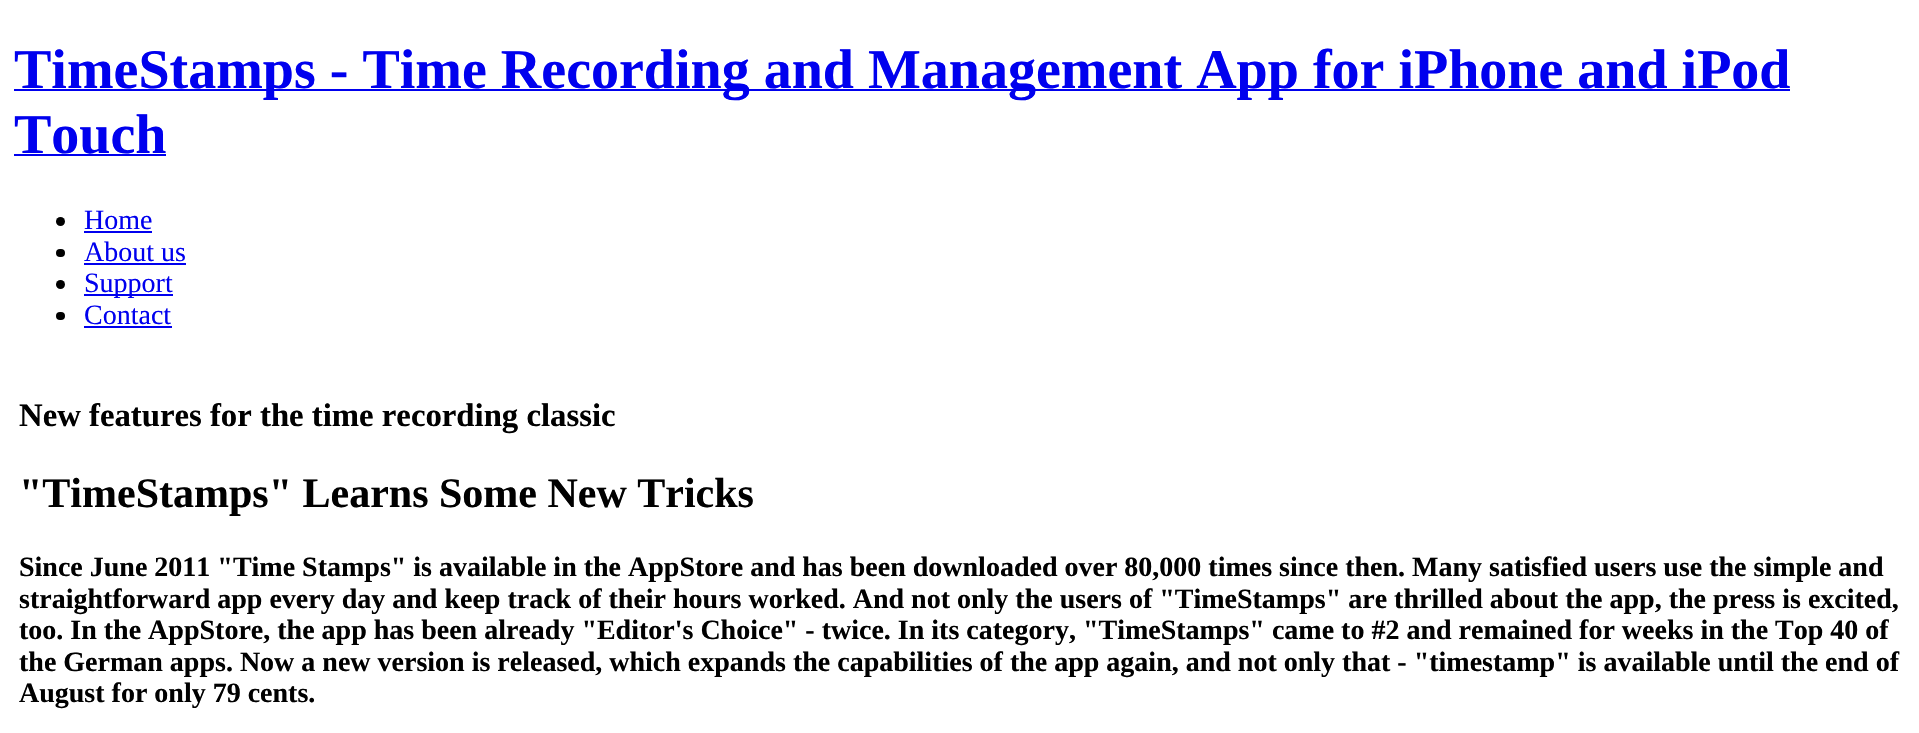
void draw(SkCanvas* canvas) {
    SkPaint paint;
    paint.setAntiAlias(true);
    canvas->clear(0xFFFFFFFF);
    paint.setColor(0xFF0000EE);
    canvas->drawRect(SkRect::MakeXYWH(14, 89, 1776, 2), paint);
    SkFont font1(fontMgr->matchFamilyStyle("Liberation Serif", SkFontStyle::Bold()), 56);
    font1.setSubpixel(true);
    canvas->drawString("TimeStamps - Time Recording and Management App for iPhone and iPod", 14, 88, font1, paint);
    canvas->drawString("Touch", 14, 153, font1, paint);
    canvas->drawRect(SkRect::MakeXYWH(14, 154, 152, 2), paint);
    paint.setColor(0xFF000000);
    canvas->drawCircle(60.5f, 221.5f, 4.5f, paint);
    SkFont font2(fontMgr->matchFamilyStyle("Liberation Serif", SkFontStyle::Normal()), 28);
    font2.setSubpixel(true);
    paint.setColor(0xFF0000EE);
    canvas->drawString("Home", 84, 229, font2, paint);
    canvas->drawRect(SkRect::MakeXYWH(84, 231, 68, 2), paint);
    paint.setColor(0xFF000000);
    canvas->drawRoundRect(SkRect::MakeXYWH(56, 249, 9, 8), 4, 4, paint);
    paint.setColor(0xFF0000EE);
    canvas->drawString("About us", 84, 261, font2, paint);
    canvas->drawRect(SkRect::MakeXYWH(84, 263, 102, 2), paint);
    paint.setColor(0xFF000000);
    canvas->drawCircle(60.5f, 284.5f, 4.5f, paint);
    paint.setColor(0xFF0000EE);
    canvas->drawRect(SkRect::MakeXYWH(84, 294, 89, 2), paint);
    canvas->drawString("Support", 84, 292, font2, paint);
    paint.setColor(0xFF000000);
    canvas->drawRoundRect(SkRect::MakeXYWH(56, 312, 9, 8), 4, 4, paint);
    paint.setColor(0xFF0000EE);
    canvas->drawString("Contact", 84, 324, font2, paint);
    canvas->drawRect(SkRect::MakeXYWH(84, 326, 88, 2), paint);
    SkFont font3(fontMgr->matchFamilyStyle("Liberation Serif", SkFontStyle::Bold()), 32.75f);
    font3.setSubpixel(true);
    paint.setColor(0xFF000000);
    canvas->drawString("New features for the time recording classic", 19, 426, font3, paint);
    SkFont font4(fontMgr->matchFamilyStyle("Liberation Serif", SkFontStyle::Bold()), 42);
    font4.setSubpixel(true);
    canvas->drawString("\"TimeStamps\" Learns Some New Tricks", 19, 507, font4, paint);
    SkFont font5(fontMgr->matchFamilyStyle("Liberation Serif", SkFontStyle::Bold()), 28);
    font5.setSubpixel(true);
    canvas->drawString("Since June 2011 \"Time Stamps\" is available in the AppStore and has been downloaded over 80,000 times since then. Many satisfied users use the simple and", 19, 576, font5, paint);
    canvas->drawString("straightforward app every day and keep track of their hours worked. And not only the users of \"TimeStamps\" are thrilled about the app, the press is excited,", 19, 608, font5, paint);
    canvas->drawString("too. In the AppStore, the app has been already \"Editor's Choice\" - twice. In its category, \"TimeStamps\" came to #2 and remained for weeks in the Top 40 of", 19, 639, font5, paint);
    canvas->drawString("the German apps. Now a new version is released, which expands the capabilities of the app again, and not only that - \"timestamp\" is available until the end of", 19, 671, font5, paint);
    canvas->drawString("August for only 79 cents.", 19, 702, font5, paint);
}
